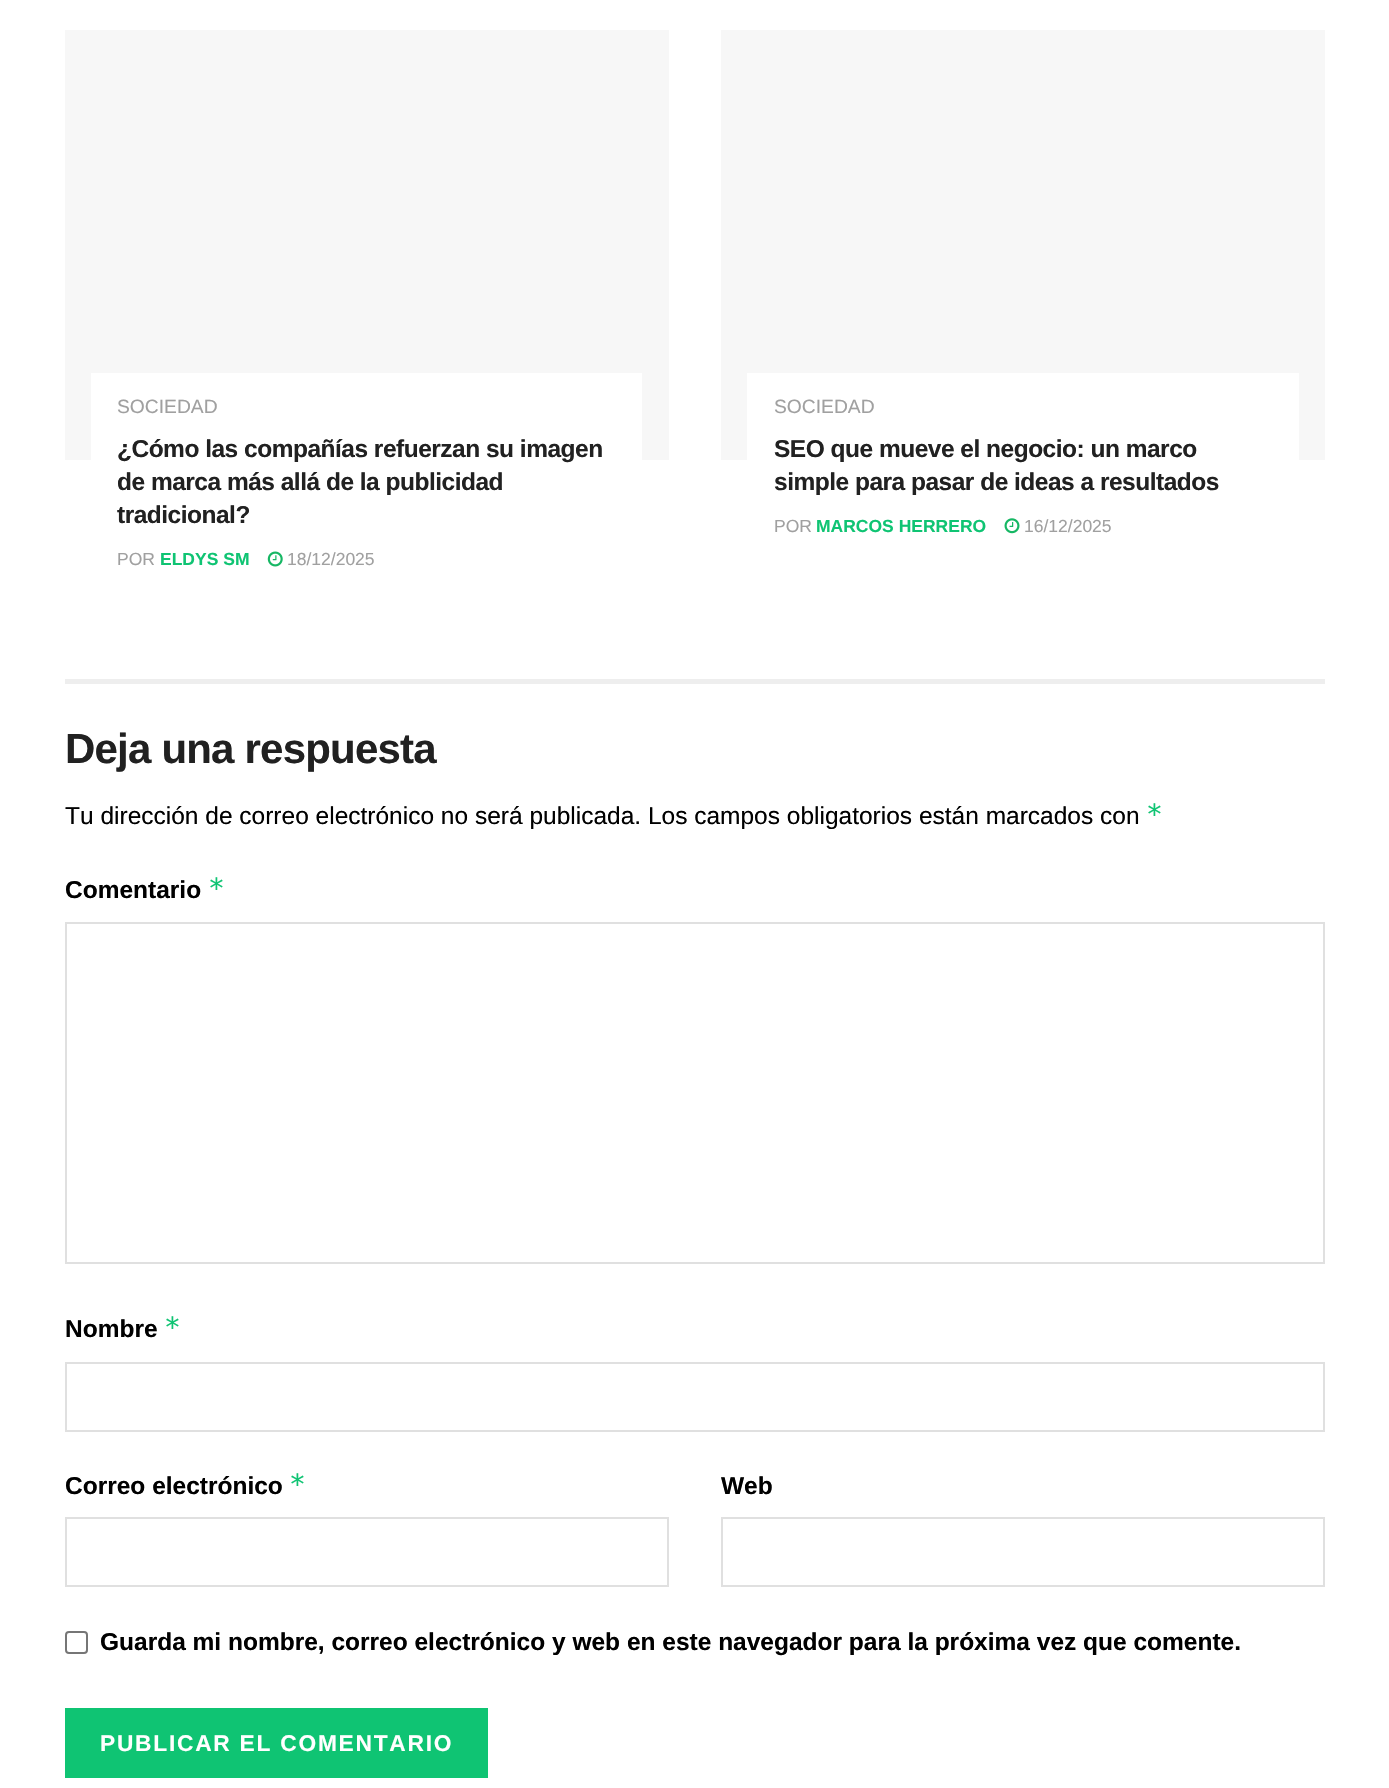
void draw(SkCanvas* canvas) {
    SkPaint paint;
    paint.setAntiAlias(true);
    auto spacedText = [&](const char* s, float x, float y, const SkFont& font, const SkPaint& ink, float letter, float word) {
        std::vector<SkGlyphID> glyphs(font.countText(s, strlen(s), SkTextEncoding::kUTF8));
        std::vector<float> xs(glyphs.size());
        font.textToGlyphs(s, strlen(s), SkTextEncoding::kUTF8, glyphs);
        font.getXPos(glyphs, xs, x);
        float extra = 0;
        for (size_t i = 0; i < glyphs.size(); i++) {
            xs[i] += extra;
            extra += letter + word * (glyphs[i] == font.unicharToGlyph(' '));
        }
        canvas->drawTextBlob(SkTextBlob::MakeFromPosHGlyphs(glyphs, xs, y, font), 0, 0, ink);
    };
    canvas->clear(0xFFFFFFFF);
    paint.setColor(0xFFF7F7F7);
    canvas->drawRect(SkRect::MakeXYWH(65, 30, 604, 430), paint);
    paint.setColor(0xFFFFFFFF);
    canvas->drawRect(SkRect::MakeXYWH(91, 373, 551, 87), paint);
    SkFont font1(fontMgr->matchFamilyStyle("Liberation Sans", SkFontStyle::Normal()), 19.25f);
    font1.setSubpixel(true);
    paint.setColor(0xFFA0A0A0);
    canvas->drawString("SOCIEDAD", 117, 413, font1, paint);
    SkFont font2(fontMgr->matchFamilyStyle("Liberation Sans", SkFontStyle::Bold()), 24.5f);
    font2.setSubpixel(true);
    paint.setColor(0xFF212121);
    spacedText("¿Cómo las compañías refuerzan su imagen", 117, 457, font2, paint, -0.5f, 0);
    spacedText("de marca más allá de la publicidad", 117, 490, font2, paint, -0.5f, 0);
    spacedText("tradicional?", 117, 523, font2, paint, -0.5f, 0);
    SkFont font3(fontMgr->matchFamilyStyle("Liberation Sans", SkFontStyle::Normal()), 17.5f);
    font3.setSubpixel(true);
    paint.setColor(0xFFA0A0A0);
    canvas->drawString("POR", 117, 565, font3, paint);
    SkFont font4(fontMgr->matchFamilyStyle("Liberation Sans", SkFontStyle::Bold()), 17.5f);
    font4.setSubpixel(true);
    paint.setColor(0xFF0FC473);
    canvas->drawString("ELDYS SM", 160, 565, font4, paint);
    canvas->drawImageRect(SkImages::DeferredFromEncodedData(SkData::MakeFromFileName("img1.png")), SkRect::MakeXYWH(267, 551, 16, 16), SkSamplingOptions());
    paint.setColor(0xFFA0A0A0);
    canvas->drawString("18/12/2025", 287, 565, font3, paint);
    paint.setColor(0xFFF7F7F7);
    canvas->drawRect(SkRect::MakeXYWH(721, 30, 604, 430), paint);
    paint.setColor(0xFFFFFFFF);
    canvas->drawRect(SkRect::MakeXYWH(747, 373, 552, 87), paint);
    paint.setColor(0xFFA0A0A0);
    canvas->drawString("SOCIEDAD", 774, 413, font1, paint);
    paint.setColor(0xFF212121);
    spacedText("SEO que mueve el negocio: un marco", 774, 457, font2, paint, -0.5f, 0);
    spacedText("simple para pasar de ideas a resultados", 774, 490, font2, paint, -0.5f, 0);
    paint.setColor(0xFFA0A0A0);
    canvas->drawString("POR", 774, 532, font3, paint);
    paint.setColor(0xFF0FC473);
    canvas->drawString("MARCOS HERRERO", 816, 532, font4, paint);
    canvas->drawImageRect(SkImages::DeferredFromEncodedData(SkData::MakeFromFileName("img2.png")), SkRect::MakeXYWH(1004, 518, 16, 16), SkSamplingOptions());
    paint.setColor(0xFFA0A0A0);
    canvas->drawString("16/12/2025", 1024, 532, font3, paint);
    paint.setColor(0xFFEEEEEE);
    canvas->drawRect(SkRect::MakeXYWH(65, 679, 1260, 5), paint);
    SkFont font5(fontMgr->matchFamilyStyle("Liberation Sans", SkFontStyle::Bold()), 42);
    font5.setSubpixel(true);
    paint.setColor(0xFF212121);
    spacedText("Deja una respuesta", 65, 763, font5, paint, -0.8f, 0);
    SkFont font6(fontMgr->matchFamilyStyle("Liberation Sans", SkFontStyle::Normal()), 24.5f);
    font6.setSubpixel(true);
    paint.setColor(0xFF000000);
    canvas->drawString("Tu dirección de correo electrónico no será publicada. Los campos obligatorios están marcados con", 65, 824, font6, paint);
    SkFont font7(fontMgr->matchFamilyStyle("DejaVu Sans Mono", SkFontStyle::Normal()), 28);
    font7.setSubpixel(true);
    paint.setColor(0xFF0FC473);
    canvas->drawString("*", 1146, 824, font7, paint);
    paint.setColor(0xFF000000);
    canvas->drawString("Comentario", 65, 898, font2, paint);
    paint.setColor(0xFF0FC473);
    canvas->drawString("*", 208, 898, font7, paint);
    paint.setStyle(SkPaint::kStroke_Style);
    paint.setStrokeWidth(2);
    paint.setColor(0xFFE0E0E0);
    canvas->drawRect(SkRect::MakeXYWH(66, 923, 1258, 340), paint);
    paint.setStyle(SkPaint::kFill_Style);
    paint.setColor(0xFF000000);
    canvas->drawString("Nombre", 65, 1337, font2, paint);
    paint.setColor(0xFF0FC473);
    canvas->drawString("*", 164, 1337, font7, paint);
    paint.setStyle(SkPaint::kStroke_Style);
    paint.setColor(0xFFE0E0E0);
    canvas->drawRect(SkRect::MakeXYWH(66, 1363, 1258, 68), paint);
    paint.setStyle(SkPaint::kFill_Style);
    paint.setColor(0xFF000000);
    canvas->drawString("Correo electrónico", 65, 1494, font2, paint);
    paint.setColor(0xFF0FC473);
    canvas->drawString("*", 289, 1494, font7, paint);
    paint.setStyle(SkPaint::kStroke_Style);
    paint.setColor(0xFFE0E0E0);
    canvas->drawRect(SkRect::MakeXYWH(66, 1518, 602, 68), paint);
    paint.setStyle(SkPaint::kFill_Style);
    paint.setColor(0xFF000000);
    canvas->drawString("Web", 721, 1494, font2, paint);
    paint.setStyle(SkPaint::kStroke_Style);
    paint.setColor(0xFFE0E0E0);
    canvas->drawRect(SkRect::MakeXYWH(722, 1518, 602, 68), paint);
    paint.setColor(0xFF767676);
    canvas->drawRoundRect(SkRect::MakeXYWH(66, 1632, 21, 21), 3, 3, paint);
    paint.setStyle(SkPaint::kFill_Style);
    paint.setColor(0xFF000000);
    canvas->drawString("Guarda mi nombre, correo electrónico y web en este navegador para la próxima vez que comente.", 100, 1650, font2, paint);
    paint.setColor(0xFF0FC473);
    canvas->drawRect(SkRect::MakeXYWH(65, 1708, 423, 70), paint);
    SkFont font8(fontMgr->matchFamilyStyle("Liberation Sans", SkFontStyle::Bold()), 22.75f);
    font8.setSubpixel(true);
    paint.setColor(0xFFFFFFFF);
    spacedText("PUBLICAR EL COMENTARIO", 100, 1751, font8, paint, 1.75f, 0);
}
